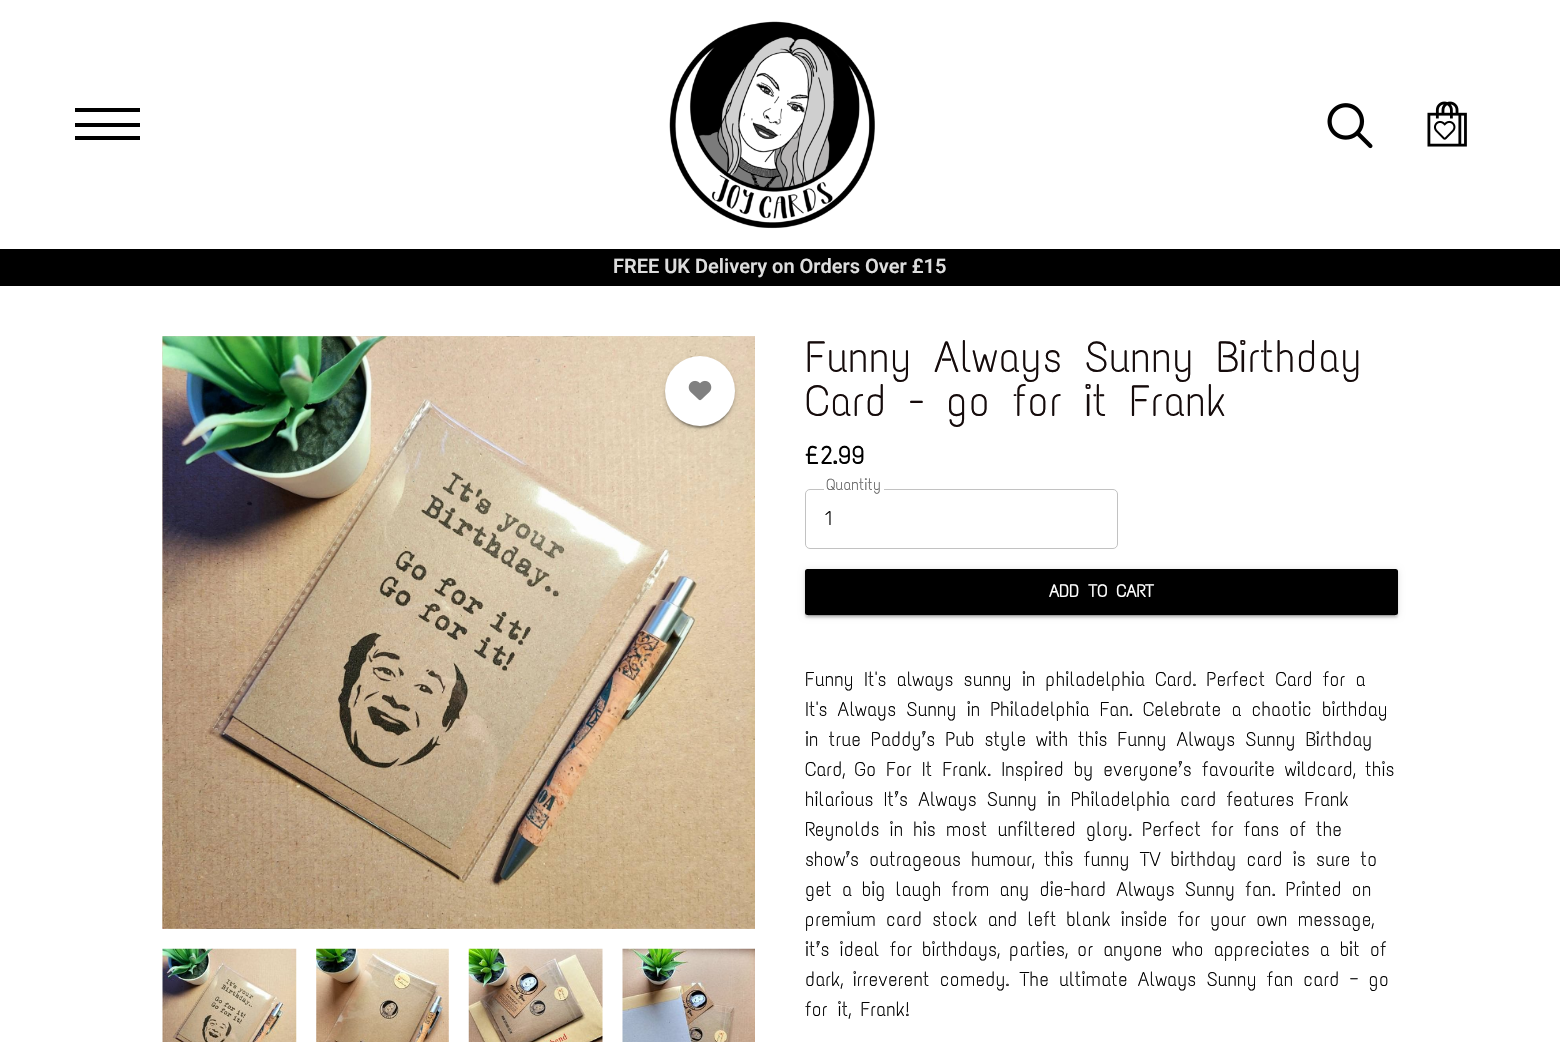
void draw(SkCanvas* canvas) {
    SkPaint paint;
    paint.setAntiAlias(true);
    canvas->clear(0xFFFFFFFF);
    paint.setColor(0xFF000000);
    canvas->drawRect(SkRect::MakeXYWH(75, 108, 65, 4), paint);
    canvas->drawRect(SkRect::MakeXYWH(75, 123, 65, 4), paint);
    canvas->drawRect(SkRect::MakeXYWH(75, 136, 65, 4), paint);
    canvas->drawImageRect(SkImages::DeferredFromEncodedData(SkData::MakeFromFileName("img1.png")), SkRect::MakeXYWH(669, 21, 206, 208), SkSamplingOptions());
    canvas->drawImageRect(SkImages::DeferredFromEncodedData(SkData::MakeFromFileName("img2.png")), SkRect::MakeXYWH(1327, 103, 46, 46), SkSamplingOptions());
    canvas->drawImageRect(SkImages::DeferredFromEncodedData(SkData::MakeFromFileName("img3.png")), SkRect::MakeXYWH(1427, 101, 40, 46), SkSamplingOptions());
    canvas->drawRect(SkRect::MakeXYWH(0, 249, 1560, 37), paint);
    SkFont font1(fontMgr->matchFamilyStyle("Roboto", SkFontStyle(600, SkFontStyle::kNormal_Width, SkFontStyle::kUpright_Slant)), 20);
    font1.setSubpixel(true);
    paint.setColor(0xFFDDDDDD);
    canvas->drawString("FREE UK Delivery on Orders Over £15", 613, 273, font1, paint);
    canvas->drawImageRect(SkImages::DeferredFromEncodedData(SkData::MakeFromFileName("img4.png")), SkRect::MakeXYWH(162, 336, 593, 593), SkSamplingOptions());
    canvas->drawImageRect(SkImages::DeferredFromEncodedData(SkData::MakeFromFileName("img5.png")), SkRect::MakeXYWH(162, 336, 593, 593), SkSamplingOptions());
    canvas->drawImageRect(SkImages::DeferredFromEncodedData(SkData::MakeFromFileName("img6.png")), SkRect::MakeXYWH(162, 948, 135, 94), SkSamplingOptions());
    canvas->drawImageRect(SkImages::DeferredFromEncodedData(SkData::MakeFromFileName("img7.png")), SkRect::MakeXYWH(316, 948, 133, 94), SkSamplingOptions());
    canvas->drawImageRect(SkImages::DeferredFromEncodedData(SkData::MakeFromFileName("img8.png")), SkRect::MakeXYWH(468, 948, 135, 94), SkSamplingOptions());
    canvas->drawImageRect(SkImages::DeferredFromEncodedData(SkData::MakeFromFileName("img9.png")), SkRect::MakeXYWH(622, 948, 133, 94), SkSamplingOptions());
    paint.setColor(0x1F000000);
    paint.setMaskFilter(SkMaskFilter::MakeBlur(kNormal_SkBlurStyle, 3));
    canvas->drawRoundRect(SkRect::MakeXYWH(665, 358, 70, 70), 35, 35, paint);
    paint.setMaskFilter(nullptr);
    paint.setColor(0x24000000);
    paint.setMaskFilter(SkMaskFilter::MakeBlur(kNormal_SkBlurStyle, 1));
    canvas->drawRoundRect(SkRect::MakeXYWH(665, 359, 70, 70), 35, 35, paint);
    paint.setMaskFilter(nullptr);
    paint.setColor(0x33000000);
    paint.setMaskFilter(SkMaskFilter::MakeBlur(kNormal_SkBlurStyle, 0.5f));
    canvas->drawRoundRect(SkRect::MakeXYWH(668, 363, 65, 65), 32.5f, 32.5f, paint);
    paint.setMaskFilter(nullptr);
    paint.setColor(0xFFFFFFFF);
    canvas->drawCircle(700, 391, 35, paint);
    canvas->drawImageRect(SkImages::DeferredFromEncodedData(SkData::MakeFromFileName("img10.png")), SkRect::MakeXYWH(688, 380, 24, 21), SkSamplingOptions());
    SkFont font2(fontMgr->matchFamilyStyle("Text Me One", SkFontStyle::Normal()), 43.75f);
    font2.setSubpixel(true);
    paint.setColor(0xFF150B0B);
    canvas->drawString("Funny Always Sunny Birthday", 805, 372, font2, paint);
    canvas->drawString("Card - go for it Frank", 805, 416, font2, paint);
    SkFont font3(fontMgr->matchFamilyStyle("Text Me One", SkFontStyle::Bold()), 25);
    font3.setSubpixel(true);
    paint.setColor(0xFF000000);
    canvas->drawString("£2.99", 805, 464, font3, paint);
    paint.setStyle(SkPaint::kStroke_Style);
    paint.setStrokeWidth(1);
    paint.setColor(0xFFC2C2C2);
    canvas->drawRoundRect(SkRect::MakeXYWH(805.5f, 489.5f, 312, 59), 4.5f, 4.5f, paint);
    paint.setStyle(SkPaint::kFill_Style);
    paint.setColor(0xFFFFFFFF);
    canvas->drawRect(SkRect::MakeXYWH(824, 489, 60, 1), paint);
    SkFont font4(fontMgr->matchFamilyStyle("Text Me One", SkFontStyle::Normal()), 16);
    font4.setSubpixel(true);
    paint.setColor(0xFF5C5C5C);
    canvas->drawString("Quantity", 826, 490, font4, paint);
    SkFont font5(fontMgr->matchFamilyStyle("Text Me One", SkFontStyle::Normal()), 20);
    font5.setSubpixel(true);
    paint.setColor(0xFF000000);
    canvas->drawString("1", 825, 525, font5, paint);
    paint.setColor(0x1F000000);
    paint.setMaskFilter(SkMaskFilter::MakeBlur(kNormal_SkBlurStyle, 3));
    canvas->drawRoundRect(SkRect::MakeXYWH(805, 570, 593, 46), 2.5f, 2.5f, paint);
    paint.setMaskFilter(nullptr);
    paint.setColor(0x24000000);
    paint.setMaskFilter(SkMaskFilter::MakeBlur(kNormal_SkBlurStyle, 1));
    canvas->drawRoundRect(SkRect::MakeXYWH(805, 571, 593, 47), 2.5f, 2.5f, paint);
    paint.setMaskFilter(nullptr);
    paint.setColor(0x33000000);
    paint.setMaskFilter(SkMaskFilter::MakeBlur(kNormal_SkBlurStyle, 0.5f));
    canvas->drawRect(SkRect::MakeXYWH(808, 575, 587, 41), paint);
    paint.setMaskFilter(nullptr);
    paint.setColor(0xFF000000);
    canvas->drawRoundRect(SkRect::MakeXYWH(805, 569, 593, 46), 2.5f, 2.5f, paint);
    SkFont font6(fontMgr->matchFamilyStyle("Text Me One", SkFontStyle::Bold()), 17.5f);
    font6.setSubpixel(true);
    paint.setColor(0xFFFFFFFF);
    canvas->drawString("ADD TO CART", 1049, 597, font6, paint);
    paint.setColor(0xFF000000);
    canvas->drawString("Funny It's always sunny in philadelphia Card. Perfect Card for a", 805, 686, font5, paint);
    canvas->drawString("It's Always Sunny in Philadelphia Fan. Celebrate a chaotic birthday", 805, 716, font5, paint);
    canvas->drawString("in true Paddy’s Pub style with this Funny Always Sunny Birthday", 805, 746, font5, paint);
    canvas->drawString("Card, Go For It Frank. Inspired by everyone’s favourite wildcard, this", 805, 776, font5, paint);
    canvas->drawString("hilarious It’s Always Sunny in Philadelphia card features Frank", 805, 806, font5, paint);
    canvas->drawString("Reynolds in his most unfiltered glory. Perfect for fans of the", 805, 836, font5, paint);
    canvas->drawString("show’s outrageous humour, this funny TV birthday card is sure to", 805, 866, font5, paint);
    canvas->drawString("get a big laugh from any die-hard Always Sunny fan. Printed on", 805, 896, font5, paint);
    canvas->drawString("premium card stock and left blank inside for your own message,", 805, 926, font5, paint);
    canvas->drawString("it’s ideal for birthdays, parties, or anyone who appreciates a bit of", 805, 956, font5, paint);
    canvas->drawString("dark, irreverent comedy. The ultimate Always Sunny fan card — go", 805, 986, font5, paint);
    canvas->drawString("for it, Frank!", 805, 1016, font5, paint);
}
